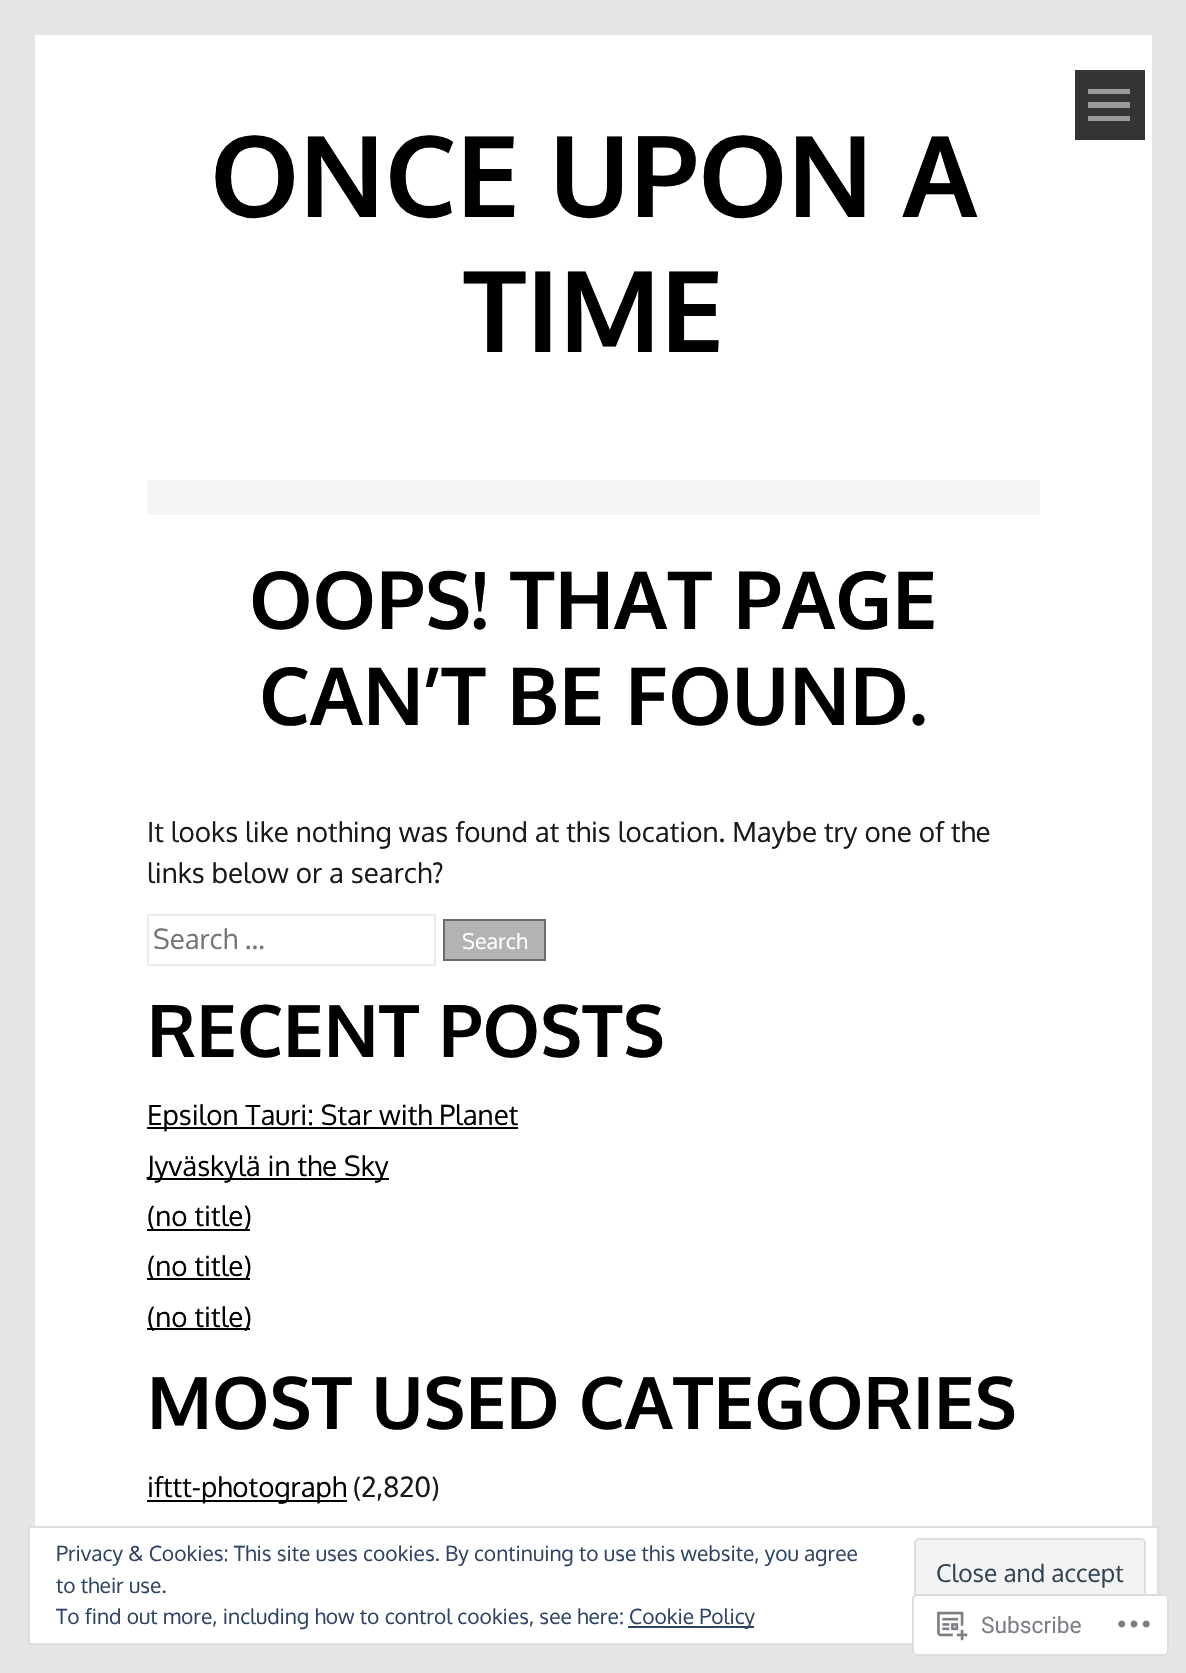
void draw(SkCanvas* canvas) {
    SkPaint paint;
    paint.setAntiAlias(true);
    canvas->clear(0xFFFFFFFF);
    paint.setColor(0xFFE5E5E5);
    canvas->drawRect(SkRect::MakeXYWH(1152, 35, 34, 1603), paint);
    canvas->drawRect(SkRect::MakeXYWH(0, 35, 35, 1603), paint);
    canvas->drawRect(SkRect::MakeXYWH(0, 0, 1186, 35), paint);
    paint.setColor(0xFFF5F5F5);
    canvas->drawRect(SkRect::MakeXYWH(147, 480, 893, 35), paint);
    paint.setColor(0xFF343434);
    canvas->drawRect(SkRect::MakeXYWH(1075, 70, 70, 70), paint);
    paint.setColor(0xFF9A9A9A);
    canvas->drawPath(SkPathBuilder().moveTo(1088, 121).lineTo(1088, 116).lineTo(1130, 116).lineTo(1130, 121).close().moveTo(1088, 89).lineTo(1130, 89).lineTo(1130, 94).lineTo(1088, 94).close().moveTo(1088, 108).lineTo(1088, 102).lineTo(1130, 102).lineTo(1130, 108).close().detach(), paint);
    SkFont font1(fontMgr->matchFamilyStyle("Oxygen", SkFontStyle::Bold()), 112.5f);
    font1.setSubpixel(true);
    paint.setColor(0xFF000000);
    canvas->drawString("ONCE UPON A", 210, 217, font1, paint);
    canvas->drawString("TIME", 463, 352, font1, paint);
    SkFont font2(fontMgr->matchFamilyStyle("Oxygen", SkFontStyle::Bold()), 80);
    font2.setSubpixel(true);
    canvas->drawString("OOPS! THAT PAGE", 249, 629, font2, paint);
    canvas->drawString("CAN’T BE FOUND.", 259, 725, font2, paint);
    SkFont font3(fontMgr->matchFamilyStyle("Oxygen", SkFontStyle::Normal()), 27.75f);
    font3.setSubpixel(true);
    paint.setColor(0xFF191919);
    canvas->drawString("It looks like nothing was found at this location. Maybe try one of the", 147, 842, font3, paint);
    canvas->drawString("links below or a search?", 147, 883, font3, paint);
    paint.setStyle(SkPaint::kStroke_Style);
    paint.setStrokeWidth(2);
    paint.setColor(0xFFEBEBEB);
    canvas->drawRect(SkRect::MakeXYWH(148, 915, 287, 50), paint);
    paint.setStyle(SkPaint::kFill_Style);
    paint.setColor(0xFF757575);
    canvas->drawString("Search …", 153, 949, font3, paint);
    paint.setColor(0xFFB3B3B3);
    canvas->drawRect(SkRect::MakeXYWH(444, 920, 101, 40), paint);
    paint.setStyle(SkPaint::kStroke_Style);
    paint.setColor(0xFF6C6C6C);
    canvas->drawRect(SkRect::MakeXYWH(444, 920, 101, 40), paint);
    SkFont font4(fontMgr->matchFamilyStyle("Oxygen", SkFontStyle::Normal()), 21.5f);
    font4.setSubpixel(true);
    paint.setStyle(SkPaint::kFill_Style);
    paint.setColor(0xFFFFFFFF);
    canvas->drawString("Search", 462, 949, font4, paint);
    SkFont font5(fontMgr->matchFamilyStyle("Oxygen", SkFontStyle::Bold()), 72.4f);
    font5.setSubpixel(true);
    paint.setColor(0xFF000000);
    canvas->drawString("RECENT POSTS", 147, 1057, font5, paint);
    canvas->drawRect(SkRect::MakeXYWH(147, 1127, 371, 2), paint);
    canvas->drawString("Epsilon Tauri: Star with Planet", 147, 1125, font3, paint);
    canvas->drawRect(SkRect::MakeXYWH(147, 1178, 242, 2), paint);
    canvas->drawString("Jyväskylä in the Sky", 147, 1176, font3, paint);
    canvas->drawRect(SkRect::MakeXYWH(147, 1229, 103, 2), paint);
    canvas->drawString("(no title)", 147, 1226, font3, paint);
    canvas->drawRect(SkRect::MakeXYWH(147, 1278, 103, 2), paint);
    canvas->drawString("(no title)", 147, 1276, font3, paint);
    canvas->drawRect(SkRect::MakeXYWH(147, 1328, 103, 2), paint);
    canvas->drawString("(no title)", 147, 1327, font3, paint);
    canvas->drawString("MOST USED CATEGORIES", 147, 1429, font5, paint);
    canvas->drawRect(SkRect::MakeXYWH(147, 1500, 200, 2), paint);
    canvas->drawString("ifttt-photograph", 147, 1497, font3, paint);
    paint.setColor(0xFF191919);
    canvas->drawString("(2,820)", 353, 1497, font3, paint);
    paint.setColor(0xFFE5E5E5);
    canvas->drawRect(SkRect::MakeXYWH(0, 1638, 1186, 35), paint);
    paint.setColor(0xFFFFFFFF);
    canvas->drawRect(SkRect::MakeXYWH(29, 1527, 1129, 117), paint);
    paint.setStyle(SkPaint::kStroke_Style);
    paint.setColor(0xFFDEDEDE);
    canvas->drawRect(SkRect::MakeXYWH(29, 1527, 1129, 117), paint);
    SkFont font6(fontMgr->matchFamilyStyle("Oxygen", SkFontStyle::Normal()), 21);
    font6.setSubpixel(true);
    paint.setStyle(SkPaint::kFill_Style);
    paint.setColor(0xFF2E4467);
    canvas->drawString("Privacy & Cookies: This site uses cookies. By continuing to use this website, you agree", 56, 1561, font6, paint);
    canvas->drawString("to their use.", 56, 1593, font6, paint);
    paint.setColor(0xFFF3F3F3);
    canvas->drawRoundRect(SkRect::MakeXYWH(915, 1539, 230, 67), 4, 4, paint);
    paint.setStyle(SkPaint::kStroke_Style);
    paint.setColor(0xFFDEDEDE);
    canvas->drawRoundRect(SkRect::MakeXYWH(915, 1539, 230, 67), 4, 4, paint);
    SkFont font7(fontMgr->matchFamilyStyle("Oxygen", SkFontStyle::Normal()), 24.5f);
    font7.setSubpixel(true);
    paint.setStyle(SkPaint::kFill_Style);
    paint.setColor(0xFF2E4453);
    canvas->drawString("Close and accept", 936, 1582, font7, paint);
    paint.setColor(0xFF2E4467);
    canvas->drawString("To find out more, including how to control cookies, see here:", 56, 1624, font6, paint);
    canvas->drawRect(SkRect::MakeXYWH(628, 1626, 126, 2), paint);
    canvas->drawString("Cookie Policy", 629, 1624, font6, paint);
    paint.setColor(0xFAFFFFFF);
    canvas->drawRoundRect(SkRect::MakeXYWH(912, 1594, 257, 62), 5, 5, paint);
    paint.setStyle(SkPaint::kStroke_Style);
    paint.setColor(0xFADCDCDE);
    canvas->drawRoundRect(SkRect::MakeXYWH(913, 1595, 255, 60), 4, 4, paint);
    canvas->drawImageRect(SkImages::DeferredFromEncodedData(SkData::MakeFromFileName("img1.png")), SkRect::MakeXYWH(937, 1611, 31, 30), SkSamplingOptions());
    SkFont font8(fontMgr->matchFamilyStyle("Roboto", SkFontStyle::Normal()), 22.75f);
    font8.setSubpixel(true);
    paint.setStyle(SkPaint::kFill_Style);
    paint.setColor(0xFF7B7F85);
    canvas->drawString("Subscribe", 981, 1633, font8, paint);
    canvas->drawImageRect(SkImages::DeferredFromEncodedData(SkData::MakeFromFileName("img2.png")), SkRect::MakeXYWH(1118, 1620, 32, 8), SkSamplingOptions());
}
